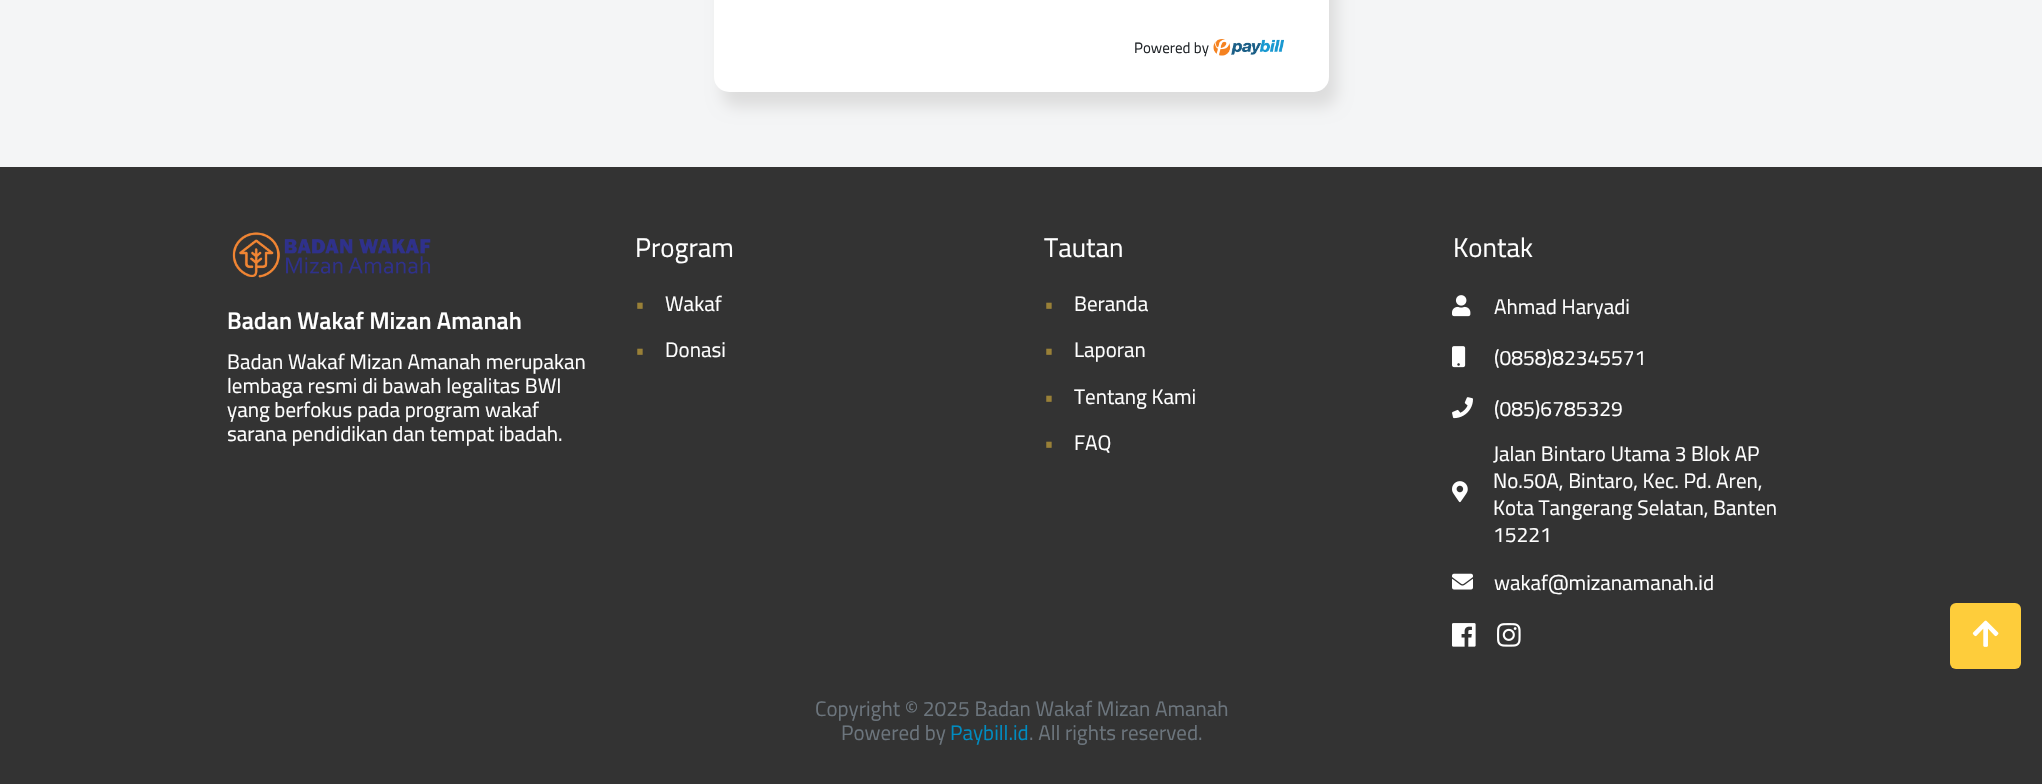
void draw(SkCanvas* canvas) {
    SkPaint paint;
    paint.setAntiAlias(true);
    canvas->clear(0xFFF4F5F6);
    paint.setColor(0xFFDDDDDD);
    paint.setMaskFilter(SkMaskFilter::MakeBlur(kNormal_SkBlurStyle, 7.5f));
    canvas->drawRoundRect(SkRect::MakeXYWH(722, -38, 615, 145), 15, 15, paint);
    paint.setMaskFilter(nullptr);
    paint.setColor(0xFFFFFFFF);
    canvas->drawRoundRect(SkRect::MakeXYWH(714, -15, 615, 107), 15, 15, paint);
    SkFont font1(fontMgr->matchFamilyStyle("Titillium Web", SkFontStyle::Normal()), 15);
    font1.setSubpixel(true);
    paint.setColor(0xFF212529);
    canvas->drawString("Powered by", 1134, 53, font1, paint);
    canvas->drawImageRect(SkImages::DeferredFromEncodedData(SkData::MakeFromFileName("img1.png")), SkRect::MakeXYWH(1213, 39, 71, 17), SkSamplingOptions());
    paint.setColor(0xFF333333);
    canvas->drawRect(SkRect::MakeXYWH(0, 167, 2042, 617), paint);
    canvas->drawImageRect(SkImages::DeferredFromEncodedData(SkData::MakeFromFileName("img2.png")), SkRect::MakeXYWH(232, 232, 199, 46), SkSamplingOptions());
    SkFont font2(fontMgr->matchFamilyStyle("Titillium Web", SkFontStyle(600, SkFontStyle::kNormal_Width, SkFontStyle::kUpright_Slant)), 24);
    font2.setSubpixel(true);
    paint.setColor(0xFFFFFFFF);
    canvas->drawString("Badan Wakaf Mizan Amanah", 227, 329, font2, paint);
    SkFont font3(fontMgr->matchFamilyStyle("Titillium Web", SkFontStyle::Normal()), 21);
    font3.setSubpixel(true);
    canvas->drawString("Badan Wakaf Mizan Amanah merupakan", 227, 369, font3, paint);
    canvas->drawString("lembaga resmi di bawah legalitas BWI", 227, 393, font3, paint);
    canvas->drawString("yang berfokus pada program wakaf", 227, 417, font3, paint);
    canvas->drawString("sarana pendidikan dan tempat ibadah.", 227, 441, font3, paint);
    SkFont font4(fontMgr->matchFamilyStyle("Titillium Web", SkFontStyle::Normal()), 27);
    font4.setSubpixel(true);
    canvas->drawString("Program", 635, 257, font4, paint);
    paint.setColor(0xFF998037);
    canvas->drawString("•", 635, 311, font3, paint);
    paint.setColor(0xFFFFFFFF);
    canvas->drawString("Wakaf", 665, 311, font3, paint);
    paint.setColor(0xFF998037);
    canvas->drawString("•", 635, 357, font3, paint);
    paint.setColor(0xFFFFFFFF);
    canvas->drawString("Donasi", 665, 357, font3, paint);
    canvas->drawString("Tautan", 1044, 257, font4, paint);
    paint.setColor(0xFF998037);
    canvas->drawString("•", 1044, 311, font3, paint);
    paint.setColor(0xFFFFFFFF);
    canvas->drawString("Beranda", 1074, 311, font3, paint);
    paint.setColor(0xFF998037);
    canvas->drawString("•", 1044, 357, font3, paint);
    paint.setColor(0xFFFFFFFF);
    canvas->drawString("Laporan", 1074, 357, font3, paint);
    paint.setColor(0xFF998037);
    canvas->drawString("•", 1044, 404, font3, paint);
    paint.setColor(0xFFFFFFFF);
    canvas->drawString("Tentang Kami", 1074, 404, font3, paint);
    paint.setColor(0xFF998037);
    canvas->drawString("•", 1044, 450, font3, paint);
    paint.setColor(0xFFFFFFFF);
    canvas->drawString("FAQ", 1074, 450, font3, paint);
    canvas->drawString("Kontak", 1453, 257, font4, paint);
    canvas->drawImageRect(SkImages::DeferredFromEncodedData(SkData::MakeFromFileName("img3.png")), SkRect::MakeXYWH(1452, 295, 19, 22), SkSamplingOptions());
    canvas->drawString("Ahmad Haryadi", 1494, 314, font3, paint);
    canvas->drawImageRect(SkImages::DeferredFromEncodedData(SkData::MakeFromFileName("img4.png")), SkRect::MakeXYWH(1452, 346, 14, 22), SkSamplingOptions());
    canvas->drawString("(0858)82345571", 1494, 365, font3, paint);
    canvas->drawImageRect(SkImages::DeferredFromEncodedData(SkData::MakeFromFileName("img5.png")), SkRect::MakeXYWH(1452, 397, 21, 22), SkSamplingOptions());
    canvas->drawString("(085)6785329", 1494, 416, font3, paint);
    canvas->drawImageRect(SkImages::DeferredFromEncodedData(SkData::MakeFromFileName("img6.png")), SkRect::MakeXYWH(1452, 481, 16, 22), SkSamplingOptions());
    canvas->drawString("Jalan Bintaro Utama 3 Blok AP", 1493, 461, font3, paint);
    canvas->drawString("No.50A, Bintaro, Kec. Pd. Aren,", 1493, 488, font3, paint);
    canvas->drawString("Kota Tangerang Selatan, Banten", 1493, 515, font3, paint);
    canvas->drawString("15221", 1493, 542, font3, paint);
    canvas->drawImageRect(SkImages::DeferredFromEncodedData(SkData::MakeFromFileName("img7.png")), SkRect::MakeXYWH(1452, 573, 21, 17), SkSamplingOptions());
    canvas->drawString("wakaf@mizanamanah.id", 1494, 590, font3, paint);
    canvas->drawImageRect(SkImages::DeferredFromEncodedData(SkData::MakeFromFileName("img8.png")), SkRect::MakeXYWH(1452, 623, 24, 24), SkSamplingOptions());
    canvas->drawImageRect(SkImages::DeferredFromEncodedData(SkData::MakeFromFileName("img9.png")), SkRect::MakeXYWH(1497, 623, 24, 24), SkSamplingOptions());
    paint.setColor(0xFF6C757D);
    canvas->drawString("Copyright © 2025 Badan Wakaf Mizan Amanah", 815, 716, font3, paint);
    canvas->drawString("Powered by", 841, 740, font3, paint);
    paint.setColor(0xFF008CC1);
    canvas->drawString("Paybill.id", 950, 740, font3, paint);
    paint.setColor(0xFF6C757D);
    canvas->drawString(". All rights reserved.", 1029, 740, font3, paint);
    paint.setColor(0xFFFECD3B);
    canvas->drawRoundRect(SkRect::MakeXYWH(1950, 603, 71, 66), 6, 6, paint);
    canvas->drawImageRect(SkImages::DeferredFromEncodedData(SkData::MakeFromFileName("img10.png")), SkRect::MakeXYWH(1972, 620, 27, 27), SkSamplingOptions());
}
